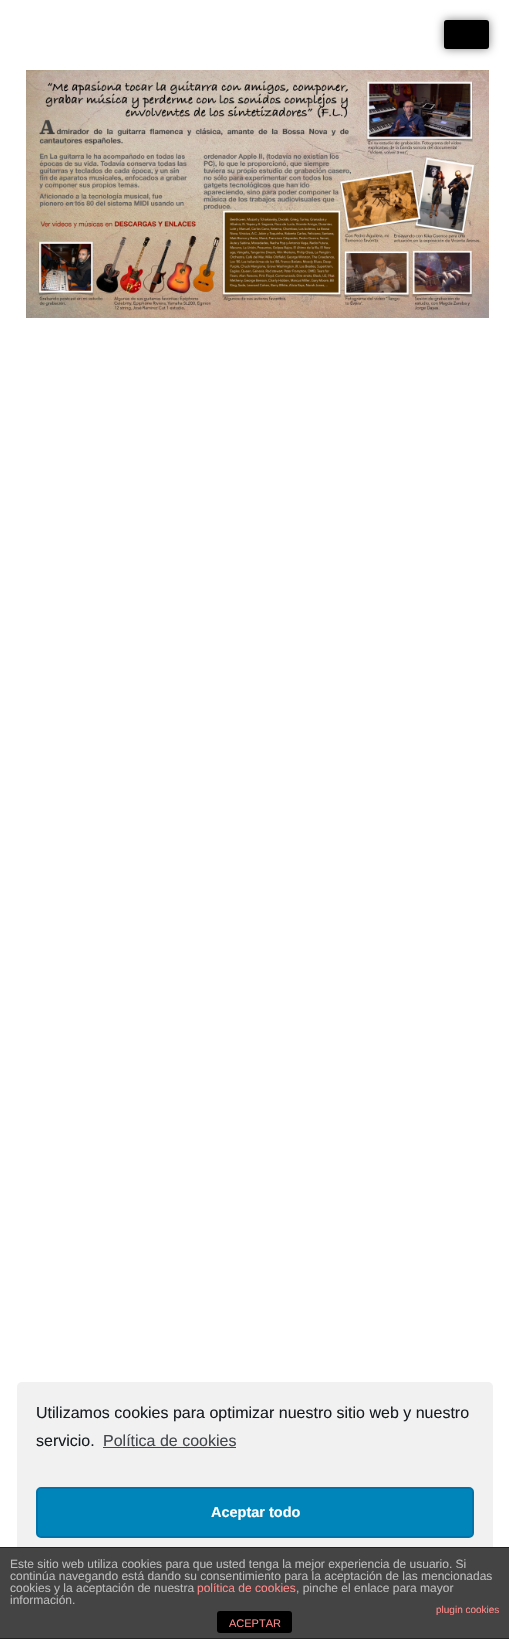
void draw(SkCanvas* canvas) {
    SkPaint paint;
    paint.setAntiAlias(true);
    canvas->clear(0xFFFFFFFF);
    paint.setColor(0x80000000);
    paint.setMaskFilter(SkMaskFilter::MakeBlur(kNormal_SkBlurStyle, 5));
    canvas->drawRoundRect(SkRect::MakeXYWH(444, 20, 45, 29), 3, 3, paint);
    paint.setMaskFilter(nullptr);
    paint.setColor(0xFF000000);
    canvas->drawRoundRect(SkRect::MakeXYWH(444, 20, 45, 29), 3, 3, paint);
    paint.setStyle(SkPaint::kStroke_Style);
    paint.setStrokeWidth(1);
    paint.setColor(0x33000000);
    canvas->drawRoundRect(SkRect::MakeXYWH(444.5f, 20.5f, 44, 28), 2.5f, 2.5f, paint);
    canvas->drawImageRect(SkImages::DeferredFromEncodedData(SkData::MakeFromFileName("img1.png")), SkRect::MakeXYWH(26, 70, 463, 248), SkSamplingOptions());
    paint.setStyle(SkPaint::kFill_Style);
    paint.setColor(0xFFF1F1F1);
    canvas->drawRoundRect(SkRect::MakeXYWH(17, 1382, 476, 241), 5, 5, paint);
    SkFont font1(fontMgr->matchFamilyStyle("Liberation Sans", SkFontStyle::Normal()), 16);
    font1.setSubpixel(true);
    paint.setColor(0xFF191E23);
    canvas->drawString("Utilizamos cookies para optimizar nuestro sitio web y nuestro", 36, 1418, font1, paint);
    canvas->drawString("servicio.", 36, 1446, font1, paint);
    paint.setColor(0xFF44484C);
    canvas->drawString("Política de cookies", 103, 1446, font1, paint);
    canvas->drawRect(SkRect::MakeXYWH(103, 1447, 133, 1), paint);
    paint.setColor(0xFF0085BA);
    canvas->drawRoundRect(SkRect::MakeXYWH(37, 1488, 436, 49), 4, 4, paint);
    paint.setStyle(SkPaint::kStroke_Style);
    paint.setStrokeWidth(2);
    paint.setColor(0xFF0073AA);
    canvas->drawRoundRect(SkRect::MakeXYWH(37, 1488, 436, 49), 4, 4, paint);
    SkFont font2(fontMgr->matchFamilyStyle("Liberation Sans", SkFontStyle::Bold()), 14.5f);
    font2.setSubpixel(true);
    paint.setStyle(SkPaint::kFill_Style);
    paint.setColor(0xFFFFFFFF);
    canvas->drawString("Aceptar todo", 211, 1517, font2, paint);
    paint.setColor(0xFF444444);
    canvas->drawRect(SkRect::MakeXYWH(0, 1548, 509, 90), paint);
    paint.setColor(0xFF222222);
    canvas->drawRect(SkRect::MakeXYWH(0, 1547, 509, 1), paint);
    canvas->drawRect(SkRect::MakeXYWH(0, 1638, 509, 1), paint);
    SkFont font3(fontMgr->matchFamilyStyle("Liberation Sans", SkFontStyle::Normal()), 12);
    font3.setSubpixel(true);
    paint.setColor(0xFFBBBBBB);
    canvas->drawString("Este sitio web utiliza cookies para que usted tenga la mejor experiencia de usuario. Si", 10, 1568, font3, paint);
    canvas->drawString("continúa navegando está dando su consentimiento para la aceptación de las mencionadas", 10, 1580, font3, paint);
    canvas->drawString("cookies y la aceptación de nuestra", 10, 1592, font3, paint);
    paint.setColor(0xFFFF8888);
    canvas->drawString("política de cookies", 197, 1592, font3, paint);
    paint.setColor(0xFFBBBBBB);
    canvas->drawString(", pinche el enlace para mayor", 296, 1592, font3, paint);
    canvas->drawString("información.", 10, 1604, font3, paint);
    SkFont font4(fontMgr->matchFamilyStyle("Liberation Sans", SkFontStyle::Normal()), 10);
    font4.setSubpixel(true);
    paint.setColor(0xFFFF8888);
    canvas->drawString("plugin cookies", 436, 1613, font4, paint);
    paint.setColor(0xFF000000);
    canvas->drawRoundRect(SkRect::MakeXYWH(217, 1611, 75, 22), 3, 3, paint);
    SkFont font5(fontMgr->matchFamilyStyle("Liberation Sans", SkFontStyle::Normal()), 11);
    font5.setSubpixel(true);
    paint.setColor(0xFFFF8888);
    canvas->drawString("ACEPTAR", 229, 1627, font5, paint);
}
